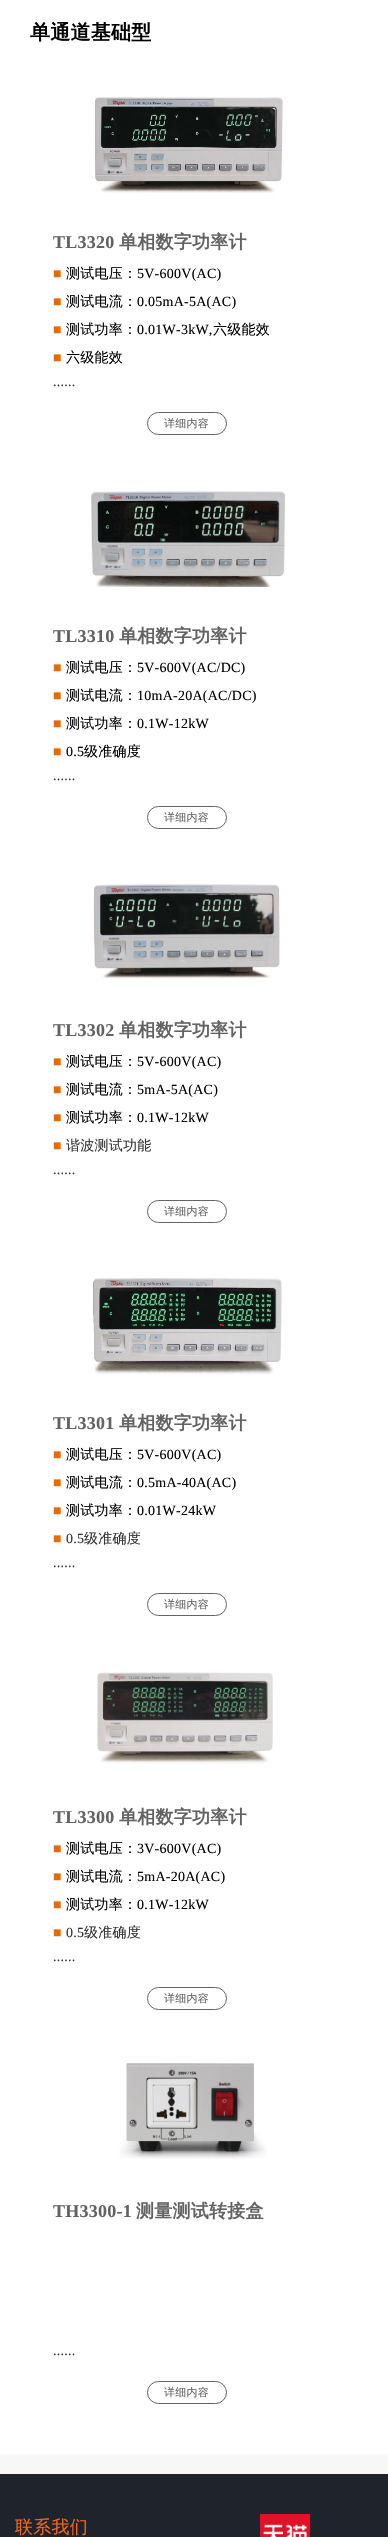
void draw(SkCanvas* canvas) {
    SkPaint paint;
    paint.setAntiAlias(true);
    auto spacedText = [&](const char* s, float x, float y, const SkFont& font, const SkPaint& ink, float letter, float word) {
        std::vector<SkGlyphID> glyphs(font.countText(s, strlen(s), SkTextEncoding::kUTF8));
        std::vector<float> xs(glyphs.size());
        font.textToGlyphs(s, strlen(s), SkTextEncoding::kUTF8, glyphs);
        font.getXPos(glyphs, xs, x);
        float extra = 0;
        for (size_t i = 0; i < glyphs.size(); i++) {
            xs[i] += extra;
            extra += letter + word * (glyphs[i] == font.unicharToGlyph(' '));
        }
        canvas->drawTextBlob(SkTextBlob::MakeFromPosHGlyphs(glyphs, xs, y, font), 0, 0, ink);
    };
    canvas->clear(0xFFF7F7F7);
    paint.setColor(0xFFFFFFFF);
    canvas->drawRect(SkRect::MakeXYWH(0, 0, 388, 2454), paint);
    SkFont font1(fontMgr->matchFamilyStyle("WenQuanYi Zen Hei", SkFontStyle::Bold()), 20);
    font1.setSubpixel(true);
    paint.setColor(0xFF000000);
    spacedText("单通道基础型", 30, 39, font1, paint, 0.25f, 0);
    canvas->drawImageRect(SkImages::DeferredFromEncodedData(SkData::MakeFromFileName("img1.png")), SkRect::MakeXYWH(95, 97, 188, 96), SkSamplingOptions());
    SkFont font2(fontMgr->matchFamilyStyle("Liberation Serif", SkFontStyle::Bold()), 18);
    font2.setSubpixel(true);
    paint.setColor(0xFF626262);
    spacedText("TL3320", 53, 248, font2, paint, 0.25f, 0);
    SkFont font3(fontMgr->matchFamilyStyle("WenQuanYi Zen Hei", SkFontStyle::Bold()), 18);
    font3.setSubpixel(true);
    spacedText("单相数字功率计", 119, 248, font3, paint, 0.25f, 0);
    SkFont font4(fontMgr->matchFamilyStyle("Liberation Serif", SkFontStyle::Normal()), 14);
    font4.setSubpixel(true);
    paint.setColor(0xFFE36C09);
    spacedText("■", 53, 278, font4, paint, 0.25f, 0);
    SkFont font5(fontMgr->matchFamilyStyle("WenQuanYi Zen Hei", SkFontStyle(500, SkFontStyle::kNormal_Width, SkFontStyle::kUpright_Slant)), 14);
    font5.setSubpixel(true);
    paint.setColor(0xFF000000);
    spacedText("测试电压：", 66, 278, font5, paint, 0.25f, 0);
    spacedText("5V-600V(AC)", 137, 278, font4, paint, 0.25f, 0);
    paint.setColor(0xFFE36C09);
    spacedText("■", 53, 306, font4, paint, 0.25f, 0);
    paint.setColor(0xFF000000);
    spacedText("测试电流：", 66, 306, font5, paint, 0.25f, 0);
    spacedText("0.05mA-5A(AC)", 137, 306, font4, paint, 0.25f, 0);
    paint.setColor(0xFFE36C09);
    spacedText("■", 53, 334, font4, paint, 0.25f, 0);
    paint.setColor(0xFF000000);
    spacedText("测试功率：", 66, 334, font5, paint, 0.25f, 0);
    spacedText("0.01W-3kW,", 137, 334, font4, paint, 0.25f, 0);
    spacedText("六级能效", 213, 334, font5, paint, 0.25f, 0);
    paint.setColor(0xFFE36C09);
    spacedText("■", 53, 362, font4, paint, 0.25f, 0);
    paint.setColor(0xFF000000);
    spacedText("六级能效", 66, 362, font5, paint, 0.25f, 0);
    paint.setColor(0xFF333333);
    spacedText("......", 53, 386, font4, paint, 0.25f, 0);
    paint.setStyle(SkPaint::kStroke_Style);
    paint.setStrokeWidth(1);
    paint.setColor(0xFF646464);
    canvas->drawRoundRect(SkRect::MakeXYWH(147.5f, 412.5f, 79, 22), 11, 11, paint);
    SkFont font6(fontMgr->matchFamilyStyle("WenQuanYi Zen Hei", SkFontStyle(500, SkFontStyle::kNormal_Width, SkFontStyle::kUpright_Slant)), 11);
    font6.setSubpixel(true);
    paint.setStyle(SkPaint::kFill_Style);
    paint.setColor(0xFF626262);
    spacedText("详细内容", 164, 427, font6, paint, 0.25f, 0);
    canvas->drawImageRect(SkImages::DeferredFromEncodedData(SkData::MakeFromFileName("img2.png")), SkRect::MakeXYWH(91, 491, 195, 96), SkSamplingOptions());
    spacedText("TL3310", 53, 642, font2, paint, 0.25f, 0);
    spacedText("单相数字功率计", 119, 642, font3, paint, 0.25f, 0);
    paint.setColor(0xFFE36C09);
    spacedText("■", 53, 672, font4, paint, 0.25f, 0);
    paint.setColor(0xFF000000);
    spacedText("测试电压：", 66, 672, font5, paint, 0.25f, 0);
    spacedText("5V-600V(AC/DC)", 137, 672, font4, paint, 0.25f, 0);
    paint.setColor(0xFFE36C09);
    spacedText("■", 53, 700, font4, paint, 0.25f, 0);
    paint.setColor(0xFF000000);
    spacedText("测试电流：", 66, 700, font5, paint, 0.25f, 0);
    spacedText("10mA-20A(AC/DC)", 137, 700, font4, paint, 0.25f, 0);
    paint.setColor(0xFFE36C09);
    spacedText("■", 53, 728, font4, paint, 0.25f, 0);
    paint.setColor(0xFF000000);
    spacedText("测试功率：", 66, 728, font5, paint, 0.25f, 0);
    spacedText("0.1W-12kW", 137, 728, font4, paint, 0.25f, 0);
    paint.setColor(0xFFE36C09);
    spacedText("■", 53, 756, font4, paint, 0.25f, 0);
    paint.setColor(0xFF000000);
    spacedText("0.5", 66, 756, font4, paint, 0.25f, 0);
    spacedText("级准确度", 84, 756, font5, paint, 0.25f, 0);
    paint.setColor(0xFF333333);
    spacedText("......", 53, 780, font4, paint, 0.25f, 0);
    paint.setStyle(SkPaint::kStroke_Style);
    paint.setColor(0xFF646464);
    canvas->drawRoundRect(SkRect::MakeXYWH(147.5f, 806.5f, 79, 22), 11, 11, paint);
    paint.setStyle(SkPaint::kFill_Style);
    paint.setColor(0xFF626262);
    spacedText("详细内容", 164, 821, font6, paint, 0.25f, 0);
    canvas->drawImageRect(SkImages::DeferredFromEncodedData(SkData::MakeFromFileName("img3.png")), SkRect::MakeXYWH(93, 884, 187, 95), SkSamplingOptions());
    spacedText("TL3302", 53, 1036, font2, paint, 0.25f, 0);
    spacedText("单相数字功率计", 119, 1036, font3, paint, 0.25f, 0);
    paint.setColor(0xFFE36C09);
    spacedText("■", 53, 1066, font4, paint, 0.25f, 0);
    paint.setColor(0xFF000000);
    spacedText("测试电压：", 66, 1066, font5, paint, 0.25f, 0);
    spacedText("5V-600V(AC)", 137, 1066, font4, paint, 0.25f, 0);
    paint.setColor(0xFFE36C09);
    spacedText("■", 53, 1094, font4, paint, 0.25f, 0);
    paint.setColor(0xFF000000);
    spacedText("测试电流：", 66, 1094, font5, paint, 0.25f, 0);
    spacedText("5mA-5A(AC)", 137, 1094, font4, paint, 0.25f, 0);
    paint.setColor(0xFFE36C09);
    spacedText("■", 53, 1122, font4, paint, 0.25f, 0);
    paint.setColor(0xFF000000);
    spacedText("测试功率：", 66, 1122, font5, paint, 0.25f, 0);
    spacedText("0.1W-12kW", 137, 1122, font4, paint, 0.25f, 0);
    paint.setColor(0xFFE36C09);
    spacedText("■", 53, 1150, font4, paint, 0.25f, 0);
    paint.setColor(0xFF333333);
    spacedText("谐波测试功能", 66, 1150, font5, paint, 0.25f, 0);
    spacedText("......", 53, 1174, font4, paint, 0.25f, 0);
    paint.setStyle(SkPaint::kStroke_Style);
    paint.setColor(0xFF646464);
    canvas->drawRoundRect(SkRect::MakeXYWH(147.5f, 1200.5f, 79, 22), 11, 11, paint);
    paint.setStyle(SkPaint::kFill_Style);
    paint.setColor(0xFF626262);
    spacedText("详细内容", 164, 1215, font6, paint, 0.25f, 0);
    canvas->drawImageRect(SkImages::DeferredFromEncodedData(SkData::MakeFromFileName("img4.png")), SkRect::MakeXYWH(93, 1278, 189, 97), SkSamplingOptions());
    spacedText("TL3301", 53, 1429, font2, paint, 0.25f, 0);
    spacedText("单相数字功率计", 119, 1429, font3, paint, 0.25f, 0);
    paint.setColor(0xFFE36C09);
    spacedText("■", 53, 1459, font4, paint, 0.25f, 0);
    paint.setColor(0xFF000000);
    spacedText("测试电压：", 66, 1459, font5, paint, 0.25f, 0);
    spacedText("5V-600V(AC)", 137, 1459, font4, paint, 0.25f, 0);
    paint.setColor(0xFFE36C09);
    spacedText("■", 53, 1487, font4, paint, 0.25f, 0);
    paint.setColor(0xFF000000);
    spacedText("测试电流：", 66, 1487, font5, paint, 0.25f, 0);
    spacedText("0.5mA-40A(AC)", 137, 1487, font4, paint, 0.25f, 0);
    paint.setColor(0xFFE36C09);
    spacedText("■", 53, 1515, font4, paint, 0.25f, 0);
    paint.setColor(0xFF000000);
    spacedText("测试功率：", 66, 1515, font5, paint, 0.25f, 0);
    spacedText("0.01W-24kW", 137, 1515, font4, paint, 0.25f, 0);
    paint.setColor(0xFFE36C09);
    spacedText("■", 53, 1543, font4, paint, 0.25f, 0);
    paint.setColor(0xFF333333);
    spacedText("0.5", 66, 1543, font4, paint, 0.25f, 0);
    spacedText("级准确度", 84, 1543, font5, paint, 0.25f, 0);
    spacedText("......", 53, 1567, font4, paint, 0.25f, 0);
    paint.setStyle(SkPaint::kStroke_Style);
    paint.setColor(0xFF646464);
    canvas->drawRoundRect(SkRect::MakeXYWH(147.5f, 1593.5f, 79, 22), 11, 11, paint);
    paint.setStyle(SkPaint::kFill_Style);
    paint.setColor(0xFF626262);
    spacedText("详细内容", 164, 1608, font6, paint, 0.25f, 0);
    canvas->drawImageRect(SkImages::DeferredFromEncodedData(SkData::MakeFromFileName("img5.png")), SkRect::MakeXYWH(97, 1672, 176, 92), SkSamplingOptions());
    spacedText("TL3300", 53, 1823, font2, paint, 0.25f, 0);
    spacedText("单相数字功率计", 119, 1823, font3, paint, 0.25f, 0);
    paint.setColor(0xFFE36C09);
    spacedText("■", 53, 1853, font4, paint, 0.25f, 0);
    paint.setColor(0xFF000000);
    spacedText("测试电压：", 66, 1853, font5, paint, 0.25f, 0);
    spacedText("3V-600V(AC)", 137, 1853, font4, paint, 0.25f, 0);
    paint.setColor(0xFFE36C09);
    spacedText("■", 53, 1881, font4, paint, 0.25f, 0);
    paint.setColor(0xFF000000);
    spacedText("测试电流：", 66, 1881, font5, paint, 0.25f, 0);
    spacedText("5mA-20A(AC)", 137, 1881, font4, paint, 0.25f, 0);
    paint.setColor(0xFFE36C09);
    spacedText("■", 53, 1909, font4, paint, 0.25f, 0);
    paint.setColor(0xFF000000);
    spacedText("测试功率：", 66, 1909, font5, paint, 0.25f, 0);
    spacedText("0.1W-12kW", 137, 1909, font4, paint, 0.25f, 0);
    paint.setColor(0xFFE36C09);
    spacedText("■", 53, 1937, font4, paint, 0.25f, 0);
    paint.setColor(0xFF333333);
    spacedText("0.5", 66, 1937, font4, paint, 0.25f, 0);
    spacedText("级准确度", 84, 1937, font5, paint, 0.25f, 0);
    spacedText("......", 53, 1961, font4, paint, 0.25f, 0);
    paint.setStyle(SkPaint::kStroke_Style);
    paint.setColor(0xFF646464);
    canvas->drawRoundRect(SkRect::MakeXYWH(147.5f, 1987.5f, 79, 22), 11, 11, paint);
    paint.setStyle(SkPaint::kFill_Style);
    paint.setColor(0xFF626262);
    spacedText("详细内容", 164, 2002, font6, paint, 0.25f, 0);
    canvas->drawImageRect(SkImages::DeferredFromEncodedData(SkData::MakeFromFileName("img6.png")), SkRect::MakeXYWH(119, 2063, 148, 96), SkSamplingOptions());
    spacedText("TH3300-1", 53, 2217, font2, paint, 0.25f, 0);
    spacedText("测量测试转接盒", 136, 2217, font3, paint, 0.25f, 0);
    paint.setColor(0xFF333333);
    spacedText("......", 53, 2355, font4, paint, 0.25f, 0);
    paint.setStyle(SkPaint::kStroke_Style);
    paint.setColor(0xFF646464);
    canvas->drawRoundRect(SkRect::MakeXYWH(147.5f, 2381.5f, 79, 22), 11, 11, paint);
    paint.setStyle(SkPaint::kFill_Style);
    paint.setColor(0xFF626262);
    spacedText("详细内容", 164, 2396, font6, paint, 0.25f, 0);
    paint.setColor(0xFF1F232B);
    canvas->drawRect(SkRect::MakeXYWH(0, 2474, 388, 63), paint);
    SkFont font7(fontMgr->matchFamilyStyle("WenQuanYi Zen Hei", SkFontStyle(500, SkFontStyle::kNormal_Width, SkFontStyle::kUpright_Slant)), 18);
    font7.setSubpixel(true);
    paint.setColor(0xFFF3661F);
    spacedText("联系我们", 15, 2533, font7, paint, 0.25f, 0);
    canvas->drawImageRect(SkImages::DeferredFromEncodedData(SkData::MakeFromFileName("img7.png")), SkRect::MakeXYWH(260, 2514, 50, 23), SkSamplingOptions());
}
